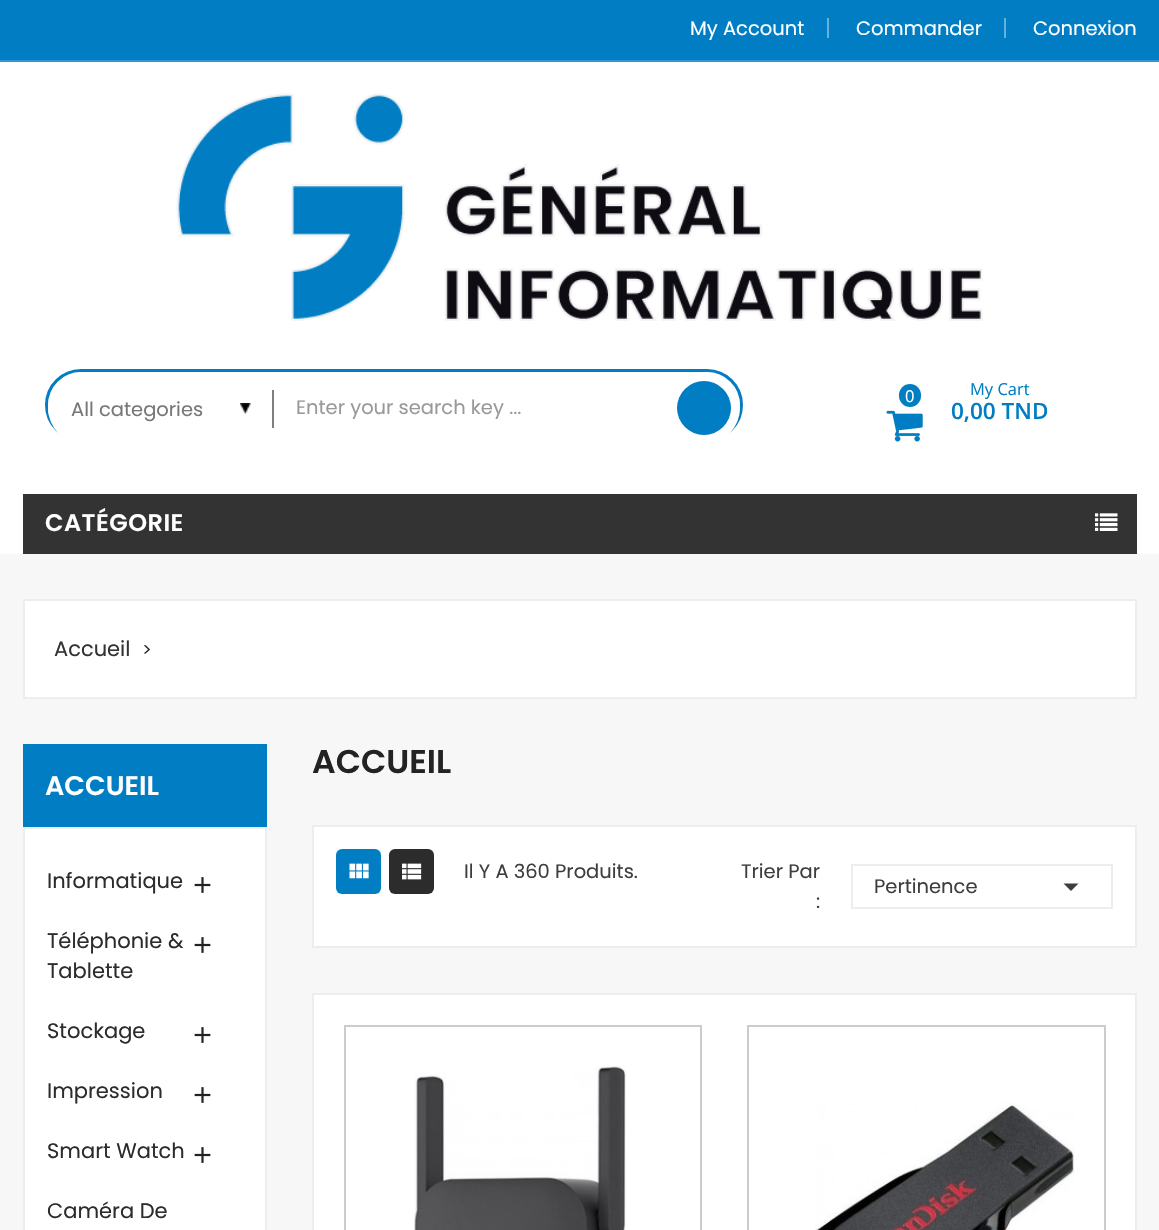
void draw(SkCanvas* canvas) {
    SkPaint paint;
    paint.setAntiAlias(true);
    auto spacedText = [&](const char* s, float x, float y, const SkFont& font, const SkPaint& ink, float letter, float word) {
        std::vector<SkGlyphID> glyphs(font.countText(s, strlen(s), SkTextEncoding::kUTF8));
        std::vector<float> xs(glyphs.size());
        font.textToGlyphs(s, strlen(s), SkTextEncoding::kUTF8, glyphs);
        font.getXPos(glyphs, xs, x);
        float extra = 0;
        for (size_t i = 0; i < glyphs.size(); i++) {
            xs[i] += extra;
            extra += letter + word * (glyphs[i] == font.unicharToGlyph(' '));
        }
        canvas->drawTextBlob(SkTextBlob::MakeFromPosHGlyphs(glyphs, xs, y, font), 0, 0, ink);
    };
    canvas->clear(0xFFF7F7F7);
    paint.setColor(0xFFFFFFFF);
    canvas->drawRect(SkRect::MakeXYWH(0, 62, 1159, 492), paint);
    paint.setColor(0xFF007DC3);
    canvas->drawRect(SkRect::MakeXYWH(0, 0, 1159, 60), paint);
    paint.setColor(0xFF3397CF);
    canvas->drawRect(SkRect::MakeXYWH(0, 60, 1159, 2), paint);
    paint.setColor(0xFF66B1DB);
    canvas->drawRect(SkRect::MakeXYWH(827, 18, 2, 20), paint);
    SkFont font1(fontMgr->matchFamilyStyle("Poppins", SkFontStyle::Normal()), 19.5f);
    font1.setSubpixel(true);
    paint.setColor(0xFFFFFFFF);
    canvas->drawString("My Account", 690, 35, font1, paint);
    paint.setColor(0xFF66B1DB);
    canvas->drawRect(SkRect::MakeXYWH(1004, 18, 2, 20), paint);
    paint.setColor(0xFFFFFFFF);
    canvas->drawString("Commander", 856, 35, font1, paint);
    canvas->drawString("Connexion", 1033, 35, font1, paint);
    canvas->drawImageRect(SkImages::DeferredFromEncodedData(SkData::MakeFromFileName("img1.png")), SkRect::MakeXYWH(176, 93, 807, 228), SkSamplingOptions());
    paint.setStyle(SkPaint::kStroke_Style);
    paint.setStrokeWidth(3);
    paint.setColor(0xFF007DC3);
    canvas->drawRoundRect(SkRect::MakeXYWH(46.5f, 370.5f, 695, 69), 34.5f, 34.5f, paint);
    paint.setStyle(SkPaint::kFill_Style);
    paint.setColor(0xFFFFFFFF);
    canvas->drawRoundRect(SkRect::MakeXYWH(48, 372, 692, 72), 36, 36, paint);
    canvas->drawPath(SkPathBuilder().moveTo(67, 390).lineTo(273, 390).lineTo(273, 428).lineTo(67, 428).cubicTo(56.5f, 428, 48, 419.5f, 48, 409).cubicTo(48, 398.5f, 56.5f, 390, 67, 390).close().detach(), paint);
    canvas->drawImageRect(SkImages::DeferredFromEncodedData(SkData::MakeFromFileName("img2.png")), SkRect::MakeXYWH(240, 403, 11, 11), SkSamplingOptions());
    paint.setColor(0xFF7F7F7F);
    canvas->drawRect(SkRect::MakeXYWH(272, 390, 2, 38), paint);
    paint.setColor(0xFF777777);
    canvas->drawString("All categories", 71, 416, font1, paint);
    paint.setColor(0xFF999999);
    canvas->drawString("Enter your search key ...", 296, 414, font1, paint);
    paint.setColor(0xFF007DC3);
    canvas->drawCircle(704, 408, 27, paint);
    canvas->drawRoundRect(SkRect::MakeXYWH(899, 384, 22, 23), 11, 11, paint);
    SkFont font2(fontMgr->matchFamilyStyle("Open Sans", SkFontStyle::Normal()), 16.5f);
    font2.setSubpixel(true);
    paint.setColor(0xFFFFFFFF);
    canvas->drawString("0", 905, 402, font2, paint);
    paint.setColor(0xFF007DC3);
    canvas->drawString("My Cart", 970, 395, font2, paint);
    canvas->drawImageRect(SkImages::DeferredFromEncodedData(SkData::MakeFromFileName("img3.png")), SkRect::MakeXYWH(886, 410, 37, 32), SkSamplingOptions());
    SkFont font3(fontMgr->matchFamilyStyle("Open Sans", SkFontStyle(600, SkFontStyle::kNormal_Width, SkFontStyle::kUpright_Slant)), 22.5f);
    font3.setSubpixel(true);
    canvas->drawString("0,00 TND", 951, 419, font3, paint);
    paint.setColor(0xFF333333);
    canvas->drawRect(SkRect::MakeXYWH(23, 494, 1114, 60), paint);
    SkFont font4(fontMgr->matchFamilyStyle("Poppins", SkFontStyle(600, SkFontStyle::kNormal_Width, SkFontStyle::kUpright_Slant)), 24);
    font4.setSubpixel(true);
    paint.setColor(0xFFFFFFFF);
    spacedText("CATÉGORIE", 45, 531, font4, paint, 0.5f, 0);
    canvas->drawImageRect(SkImages::DeferredFromEncodedData(SkData::MakeFromFileName("img4.png")), SkRect::MakeXYWH(1095, 513, 23, 18), SkSamplingOptions());
    canvas->drawRect(SkRect::MakeXYWH(24, 600, 1112, 98), paint);
    paint.setStyle(SkPaint::kStroke_Style);
    paint.setStrokeWidth(2);
    paint.setColor(0xFFEDEDED);
    canvas->drawRect(SkRect::MakeXYWH(24, 600, 1112, 98), paint);
    SkFont font5(fontMgr->matchFamilyStyle("Poppins", SkFontStyle::Normal()), 21);
    font5.setSubpixel(true);
    paint.setStyle(SkPaint::kFill_Style);
    paint.setColor(0xFF333333);
    canvas->drawString("Accueil", 54, 656, font5, paint);
    SkFont font6(fontMgr->matchFamilyStyle("Poppins", SkFontStyle::Normal()), 18);
    font6.setSubpixel(true);
    canvas->drawString(">", 142, 656, font6, paint);
    paint.setColor(0xFF007DC3);
    canvas->drawRect(SkRect::MakeXYWH(23, 744, 244, 83), paint);
    SkFont font7(fontMgr->matchFamilyStyle("Poppins", SkFontStyle(600, SkFontStyle::kNormal_Width, SkFontStyle::kUpright_Slant)), 27);
    font7.setSubpixel(true);
    paint.setColor(0xFFFFFFFF);
    canvas->drawString("ACCUEIL", 45, 795, font7, paint);
    canvas->drawRect(SkRect::MakeXYWH(24, 828, 242, 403), paint);
    paint.setStyle(SkPaint::kStroke_Style);
    paint.setColor(0xFFEDEDED);
    canvas->drawRect(SkRect::MakeXYWH(24, 828, 242, 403), paint);
    paint.setStyle(SkPaint::kFill_Style);
    paint.setColor(0xFF2C2C2C);
    canvas->drawString("Informatique", 47, 888, font5, paint);
    canvas->drawImageRect(SkImages::DeferredFromEncodedData(SkData::MakeFromFileName("img5.png")), SkRect::MakeXYWH(194, 877, 17, 16), SkSamplingOptions());
    canvas->drawString("Téléphonie &", 47, 948, font5, paint);
    canvas->drawString("Tablette", 47, 978, font5, paint);
    canvas->drawImageRect(SkImages::DeferredFromEncodedData(SkData::MakeFromFileName("img5.png")), SkRect::MakeXYWH(194, 937, 17, 16), SkSamplingOptions());
    canvas->drawString("Stockage", 47, 1038, font5, paint);
    canvas->drawImageRect(SkImages::DeferredFromEncodedData(SkData::MakeFromFileName("img5.png")), SkRect::MakeXYWH(194, 1027, 17, 16), SkSamplingOptions());
    canvas->drawString("Impression", 47, 1098, font5, paint);
    canvas->drawImageRect(SkImages::DeferredFromEncodedData(SkData::MakeFromFileName("img5.png")), SkRect::MakeXYWH(194, 1087, 17, 16), SkSamplingOptions());
    canvas->drawString("Smart Watch", 47, 1158, font5, paint);
    canvas->drawImageRect(SkImages::DeferredFromEncodedData(SkData::MakeFromFileName("img5.png")), SkRect::MakeXYWH(194, 1147, 17, 16), SkSamplingOptions());
    canvas->drawString("Caméra De", 47, 1218, font5, paint);
    SkFont font8(fontMgr->matchFamilyStyle("Poppins", SkFontStyle(600, SkFontStyle::kNormal_Width, SkFontStyle::kUpright_Slant)), 33);
    font8.setSubpixel(true);
    paint.setColor(0xFF232323);
    canvas->drawString("ACCUEIL", 312, 773, font8, paint);
    paint.setColor(0xFFFFFFFF);
    canvas->drawRect(SkRect::MakeXYWH(313, 826, 823, 121), paint);
    paint.setStyle(SkPaint::kStroke_Style);
    paint.setColor(0xFFEDEDED);
    canvas->drawRect(SkRect::MakeXYWH(313, 826, 823, 121), paint);
    paint.setStyle(SkPaint::kFill_Style);
    paint.setColor(0xFF007DC3);
    canvas->drawRoundRect(SkRect::MakeXYWH(336, 849, 45, 45), 6, 6, paint);
    canvas->drawImageRect(SkImages::DeferredFromEncodedData(SkData::MakeFromFileName("img6.png")), SkRect::MakeXYWH(349, 863, 20, 16), SkSamplingOptions());
    paint.setColor(0xFF2C2C2C);
    canvas->drawRoundRect(SkRect::MakeXYWH(389, 849, 45, 45), 6, 6, paint);
    canvas->drawImageRect(SkImages::DeferredFromEncodedData(SkData::MakeFromFileName("img7.png")), SkRect::MakeXYWH(402, 863, 20, 17), SkSamplingOptions());
    paint.setColor(0xFF3E3E3E);
    canvas->drawString("Il Y A 360 Produits.", 464, 878, font1, paint);
    canvas->drawString("Trier Par", 741, 878, font1, paint);
    canvas->drawString(":", 816, 908, font1, paint);
    paint.setStyle(SkPaint::kStroke_Style);
    paint.setColor(0xFFEDEDED);
    canvas->drawRect(SkRect::MakeXYWH(852, 865, 260, 43), paint);
    paint.setStyle(SkPaint::kFill_Style);
    paint.setColor(0xFF3E3E3E);
    canvas->drawString("Pertinence", 874, 893, font1, paint);
    canvas->drawPath(SkPathBuilder().moveTo(1063.5f, 883.5f).lineTo(1078.5f, 883.5f).lineTo(1071, 891).close().detach(), paint);
    paint.setColor(0xFFFFFFFF);
    canvas->drawRect(SkRect::MakeXYWH(313, 994, 823, 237), paint);
    paint.setStyle(SkPaint::kStroke_Style);
    paint.setColor(0xFFEDEDED);
    canvas->drawRect(SkRect::MakeXYWH(313, 994, 823, 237), paint);
    paint.setColor(0xFFCCCCCC);
    canvas->drawRect(SkRect::MakeXYWH(345, 1026, 356, 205), paint);
    canvas->drawImageRect(SkImages::DeferredFromEncodedData(SkData::MakeFromFileName("img8.png")), SkRect::MakeXYWH(414, 1065, 212, 165), SkSamplingOptions());
    canvas->drawRect(SkRect::MakeXYWH(748, 1026, 357, 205), paint);
    canvas->drawImageRect(SkImages::DeferredFromEncodedData(SkData::MakeFromFileName("img9.png")), SkRect::MakeXYWH(815, 1103, 260, 127), SkSamplingOptions());
}
